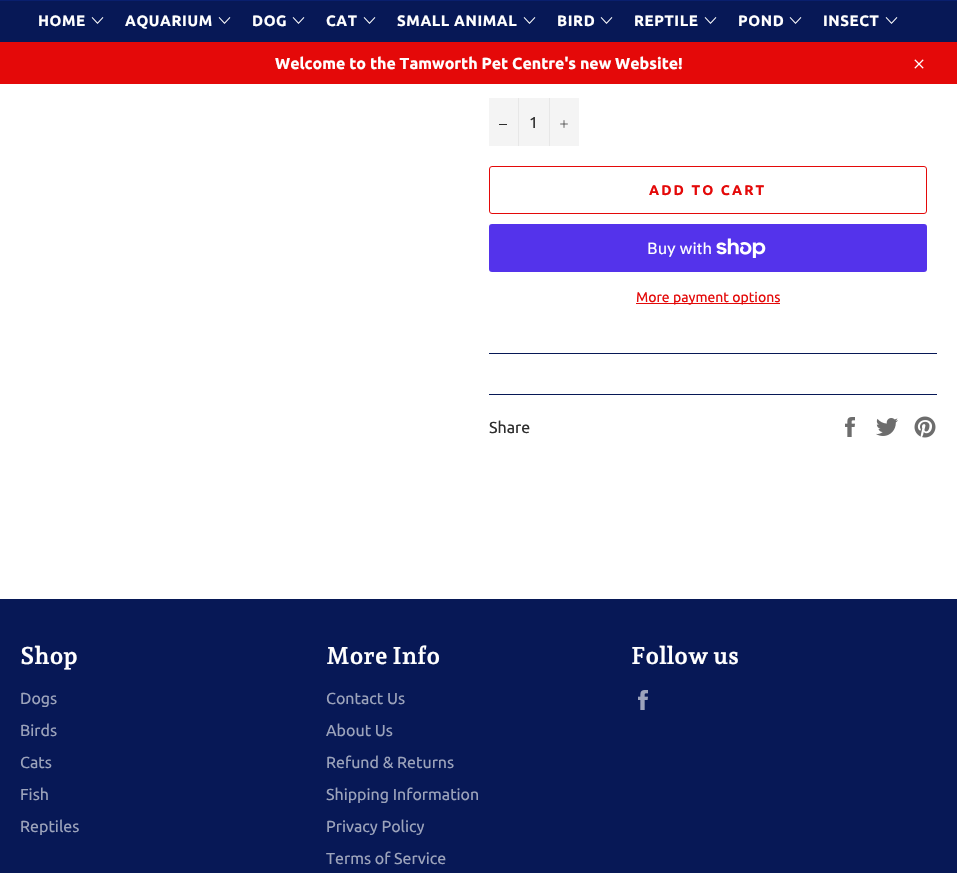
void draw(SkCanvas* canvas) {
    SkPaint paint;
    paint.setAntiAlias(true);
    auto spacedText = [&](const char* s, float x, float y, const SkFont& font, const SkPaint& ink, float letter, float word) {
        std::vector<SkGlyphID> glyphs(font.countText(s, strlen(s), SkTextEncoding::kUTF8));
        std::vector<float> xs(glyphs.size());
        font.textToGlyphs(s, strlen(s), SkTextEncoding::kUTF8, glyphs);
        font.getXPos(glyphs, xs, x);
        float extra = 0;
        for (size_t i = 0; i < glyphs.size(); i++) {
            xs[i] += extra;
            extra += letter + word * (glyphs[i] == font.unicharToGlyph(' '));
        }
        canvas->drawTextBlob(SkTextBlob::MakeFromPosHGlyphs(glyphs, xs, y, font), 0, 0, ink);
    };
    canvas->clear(0xFFFFFFFF);
    paint.setColor(0xFF071856);
    canvas->drawRect(SkRect::MakeXYWH(0, 1, 957, 41), paint);
    paint.setColor(0xFF091F6E);
    canvas->drawRect(SkRect::MakeXYWH(0, 0, 957, 1), paint);
    SkFont font1(fontMgr->matchFamilyStyle("Ubuntu", SkFontStyle::Bold()), 15);
    font1.setSubpixel(true);
    paint.setColor(0xFFFFFFFF);
    spacedText("HOME", 38, 26, font1, paint, 0.6f, 0);
    canvas->drawImageRect(SkImages::DeferredFromEncodedData(SkData::MakeFromFileName("img1.png")), SkRect::MakeXYWH(91, 17, 13, 7), SkSamplingOptions());
    spacedText("AQUARIUM", 125, 26, font1, paint, 0.6f, 0);
    canvas->drawImageRect(SkImages::DeferredFromEncodedData(SkData::MakeFromFileName("img1.png")), SkRect::MakeXYWH(218, 17, 13, 7), SkSamplingOptions());
    spacedText("DOG", 252, 26, font1, paint, 0.6f, 0);
    canvas->drawImageRect(SkImages::DeferredFromEncodedData(SkData::MakeFromFileName("img1.png")), SkRect::MakeXYWH(292, 17, 13, 7), SkSamplingOptions());
    spacedText("CAT", 326, 26, font1, paint, 0.6f, 0);
    canvas->drawImageRect(SkImages::DeferredFromEncodedData(SkData::MakeFromFileName("img1.png")), SkRect::MakeXYWH(363, 17, 13, 7), SkSamplingOptions());
    spacedText("SMALL ANIMAL", 397, 26, font1, paint, 0.6f, 0);
    canvas->drawImageRect(SkImages::DeferredFromEncodedData(SkData::MakeFromFileName("img1.png")), SkRect::MakeXYWH(523, 17, 13, 7), SkSamplingOptions());
    spacedText("BIRD", 557, 26, font1, paint, 0.6f, 0);
    canvas->drawImageRect(SkImages::DeferredFromEncodedData(SkData::MakeFromFileName("img1.png")), SkRect::MakeXYWH(600, 17, 13, 7), SkSamplingOptions());
    spacedText("REPTILE", 634, 26, font1, paint, 0.6f, 0);
    canvas->drawImageRect(SkImages::DeferredFromEncodedData(SkData::MakeFromFileName("img1.png")), SkRect::MakeXYWH(704, 17, 13, 7), SkSamplingOptions());
    spacedText("POND", 738, 26, font1, paint, 0.6f, 0);
    canvas->drawImageRect(SkImages::DeferredFromEncodedData(SkData::MakeFromFileName("img1.png")), SkRect::MakeXYWH(789, 17, 13, 7), SkSamplingOptions());
    spacedText("INSECT", 823, 26, font1, paint, 0.6f, 0);
    canvas->drawImageRect(SkImages::DeferredFromEncodedData(SkData::MakeFromFileName("img1.png")), SkRect::MakeXYWH(885, 17, 13, 7), SkSamplingOptions());
    paint.setColor(0xFFE40909);
    canvas->drawRect(SkRect::MakeXYWH(0, 42, 957, 42), paint);
    SkFont font2(fontMgr->matchFamilyStyle("Ubuntu", SkFontStyle::Bold()), 16);
    font2.setSubpixel(true);
    paint.setColor(0xFFFFFFFF);
    canvas->drawString("Welcome to the Tamworth Pet Centre's new Website!", 275, 69, font2, paint);
    canvas->drawImageRect(SkImages::DeferredFromEncodedData(SkData::MakeFromFileName("img2.png")), SkRect::MakeXYWH(914, 59, 10, 10), SkSamplingOptions());
    paint.setColor(0xFFF4F4F4);
    canvas->drawRect(SkRect::MakeXYWH(489, 98, 90, 48), paint);
    paint.setColor(0xFFE7E7E7);
    canvas->drawRect(SkRect::MakeXYWH(518, 98, 1, 48), paint);
    paint.setColor(0xFF2E2E2E);
    canvas->drawRect(SkRect::MakeXYWH(499, 124, 8, 1), paint);
    SkFont font3(fontMgr->matchFamilyStyle("Ubuntu", SkFontStyle::Normal()), 16);
    font3.setSubpixel(true);
    canvas->drawString("1", 529, 128, font3, paint);
    paint.setColor(0xFFE7E7E7);
    canvas->drawRect(SkRect::MakeXYWH(549, 98, 1, 48), paint);
    canvas->drawImageRect(SkImages::DeferredFromEncodedData(SkData::MakeFromFileName("img3.png")), SkRect::MakeXYWH(560, 120, 8, 8), SkSamplingOptions());
    paint.setStyle(SkPaint::kStroke_Style);
    paint.setStrokeWidth(1);
    paint.setColor(0xFFE40909);
    canvas->drawRoundRect(SkRect::MakeXYWH(489.5f, 166.5f, 437, 47), 2.5f, 2.5f, paint);
    SkFont font4(fontMgr->matchFamilyStyle("Ubuntu", SkFontStyle::Bold()), 14);
    font4.setSubpixel(true);
    paint.setStyle(SkPaint::kFill_Style);
    spacedText("ADD TO CART", 649, 195, font4, paint, 2.1f, 0);
    paint.setColor(0xFF5433EB);
    canvas->drawRoundRect(SkRect::MakeXYWH(489, 224, 438, 48), 3, 3, paint);
    SkFont font5(fontMgr->matchFamilyStyle("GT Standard", SkFontStyle::Normal()), 16);
    font5.setSubpixel(true);
    paint.setColor(0xFFFFFFFF);
    canvas->drawString("Buy with", 647, 254, font5, paint);
    canvas->drawImageRect(SkImages::DeferredFromEncodedData(SkData::MakeFromFileName("img4.png")), SkRect::MakeXYWH(716, 238, 50, 20), SkSamplingOptions());
    paint.setColor(0xFFE40909);
    canvas->drawRect(SkRect::MakeXYWH(636, 303, 144, 1), paint);
    SkFont font6(fontMgr->matchFamilyStyle("Ubuntu", SkFontStyle::Normal()), 14);
    font6.setSubpixel(true);
    canvas->drawString("More payment options", 636, 302, font6, paint);
    paint.setColor(0xFF071856);
    canvas->drawRect(SkRect::MakeXYWH(489, 353, 448, 1), paint);
    canvas->drawRect(SkRect::MakeXYWH(489, 394, 448, 1), paint);
    paint.setColor(0xFF2E2E2E);
    canvas->drawString("Share", 489, 433, font3, paint);
    canvas->drawImageRect(SkImages::DeferredFromEncodedData(SkData::MakeFromFileName("img5.png")), SkRect::MakeXYWH(845, 417, 10, 20), SkSamplingOptions());
    canvas->drawImageRect(SkImages::DeferredFromEncodedData(SkData::MakeFromFileName("img6.png")), SkRect::MakeXYWH(876, 418, 22, 18), SkSamplingOptions());
    canvas->drawImageRect(SkImages::DeferredFromEncodedData(SkData::MakeFromFileName("img7.png")), SkRect::MakeXYWH(914, 416, 22, 22), SkSamplingOptions());
    paint.setColor(0xFF071856);
    canvas->drawRect(SkRect::MakeXYWH(0, 599, 957, 274), paint);
    SkFont font7(fontMgr->matchFamilyStyle("Andada Pro", SkFontStyle::Bold()), 24);
    font7.setSubpixel(true);
    paint.setColor(0xFFFFFFFF);
    canvas->drawString("Shop", 20, 664, font7, paint);
    paint.setColor(0xFF9CA3BB);
    canvas->drawString("Dogs", 20, 704, font3, paint);
    canvas->drawString("Birds", 20, 736, font3, paint);
    canvas->drawString("Cats", 20, 768, font3, paint);
    canvas->drawString("Fish", 20, 800, font3, paint);
    canvas->drawString("Reptiles", 20, 832, font3, paint);
    paint.setColor(0xFFFFFFFF);
    canvas->drawString("More Info", 326, 664, font7, paint);
    paint.setColor(0xFF9CA3BB);
    canvas->drawString("Contact Us", 326, 704, font3, paint);
    canvas->drawString("About Us", 326, 736, font3, paint);
    canvas->drawString("Refund & Returns", 326, 768, font3, paint);
    canvas->drawString("Shipping Information", 326, 800, font3, paint);
    canvas->drawString("Privacy Policy", 326, 832, font3, paint);
    canvas->drawString("Terms of Service", 326, 864, font3, paint);
    paint.setColor(0xFFFFFFFF);
    canvas->drawString("Follow us", 631, 664, font7, paint);
    canvas->drawImageRect(SkImages::DeferredFromEncodedData(SkData::MakeFromFileName("img8.png")), SkRect::MakeXYWH(638, 690, 10, 20), SkSamplingOptions());
}
